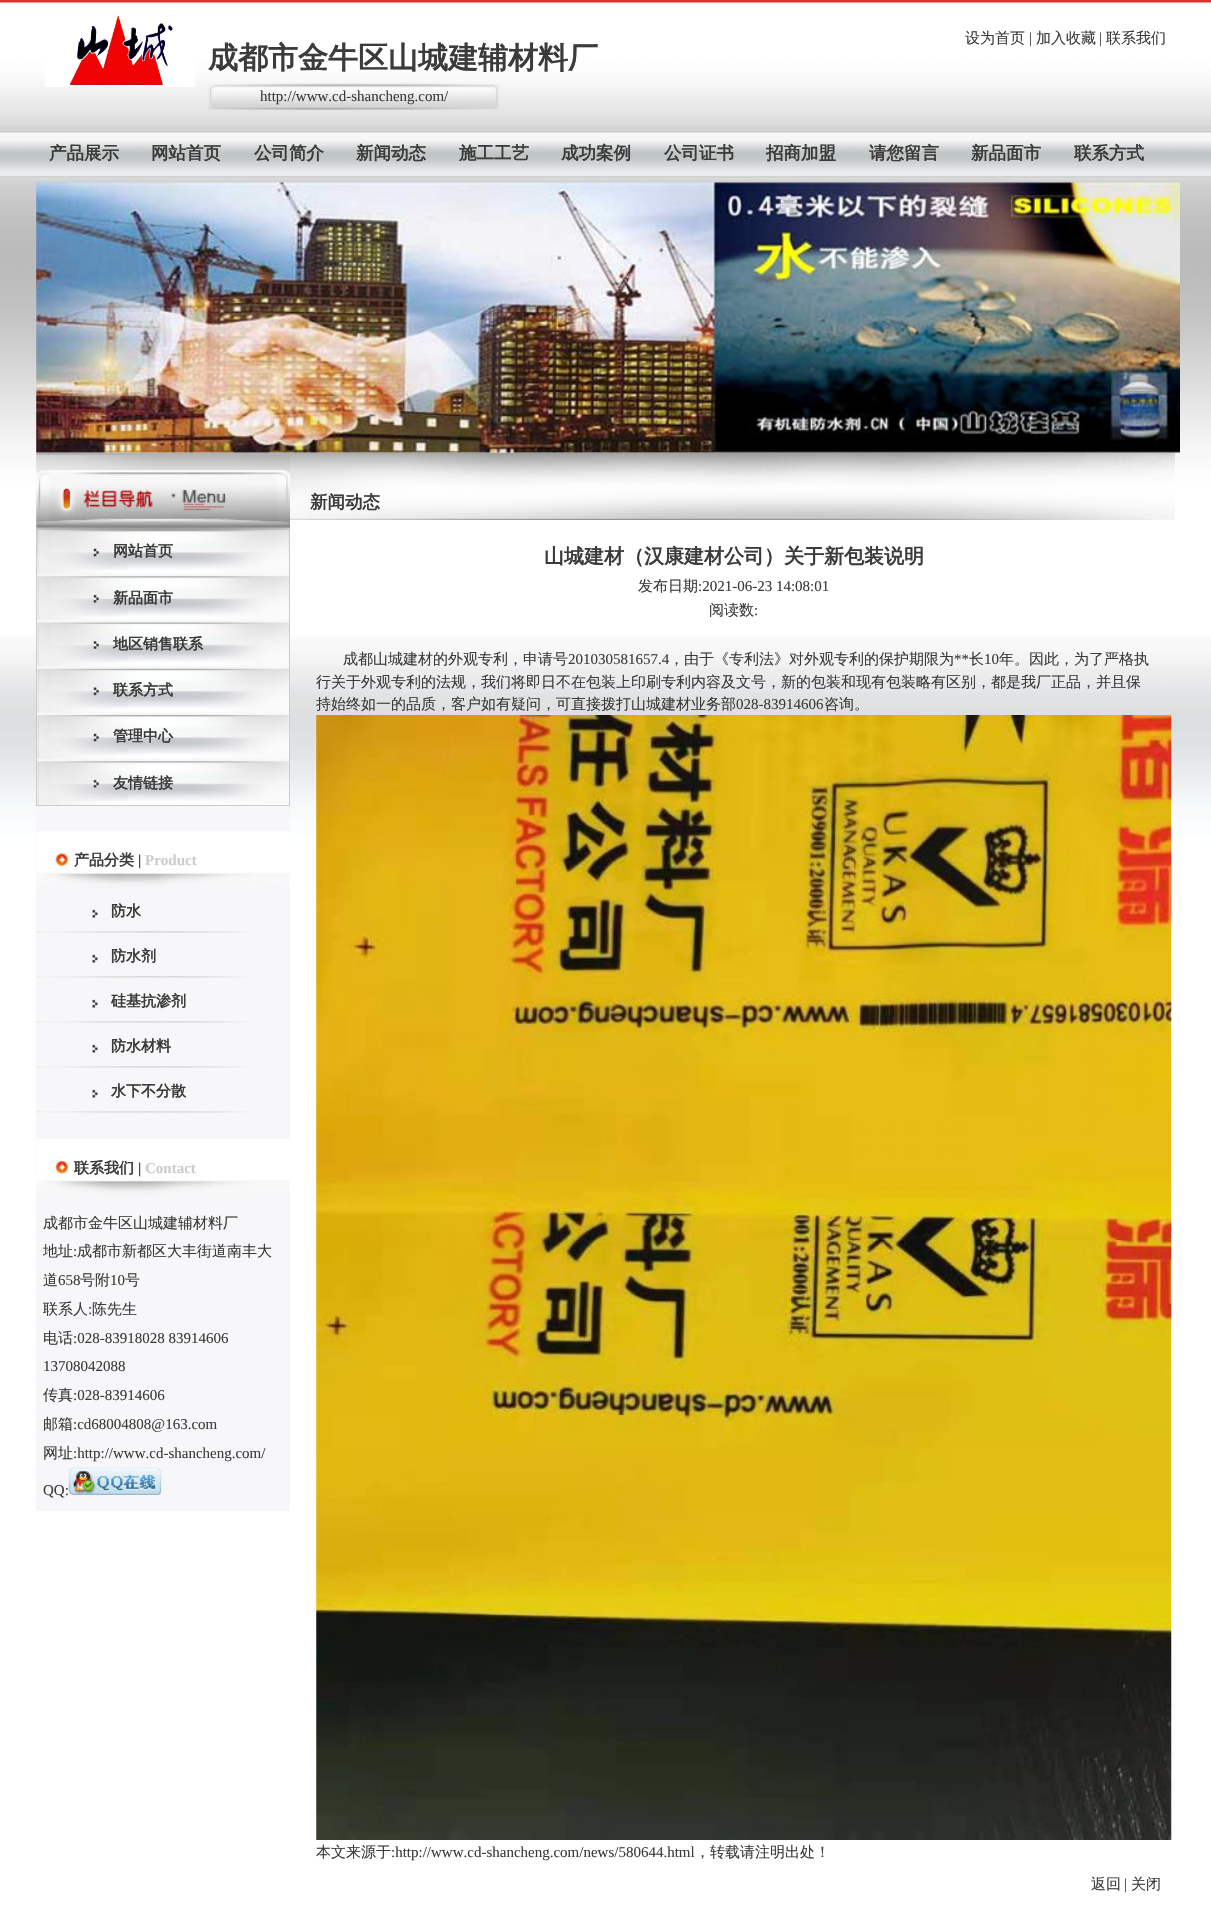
void draw(SkCanvas* canvas) {
    SkPaint paint;
    paint.setAntiAlias(true);
    canvas->clear(0xFFFFFFFF);
    canvas->drawImageRect(SkImages::DeferredFromEncodedData(SkData::MakeFromFileName("img1.png")), SkRect::MakeXYWH(0, 0, 1211, 838), SkSamplingOptions());
    canvas->drawImageRect(SkImages::DeferredFromEncodedData(SkData::MakeFromFileName("img2.png")), SkRect::MakeXYWH(45, 15, 150, 72), SkSamplingOptions());
    SkFont font1(fontMgr->matchFamilyStyle("WenQuanYi Zen Hei", SkFontStyle(500, SkFontStyle::kNormal_Width, SkFontStyle::kUpright_Slant)), 15);
    font1.setSubpixel(true);
    paint.setColor(0xFF3B3B3B);
    canvas->drawString("设为首页", 965, 43, font1, paint);
    SkFont font2(fontMgr->matchFamilyStyle("Liberation Serif", SkFontStyle::Normal()), 15);
    font2.setSubpixel(true);
    canvas->drawString("|", 1029, 43, font2, paint);
    canvas->drawString("加入收藏", 1036, 43, font1, paint);
    canvas->drawString("|", 1099, 43, font2, paint);
    canvas->drawString("联系我们", 1106, 43, font1, paint);
    SkFont font3(fontMgr->matchFamilyStyle("WenQuanYi Zen Hei", SkFontStyle::Bold()), 30);
    font3.setSubpixel(true);
    canvas->drawString("成都市金牛区山城建辅材料厂", 208, 68, font3, paint);
    canvas->drawImageRect(SkImages::DeferredFromEncodedData(SkData::MakeFromFileName("img3.png")), SkRect::MakeXYWH(207, 83, 293, 27), SkSamplingOptions());
    canvas->drawString("http://www.cd-shancheng.com/", 260, 101, font2, paint);
    SkFont font4(fontMgr->matchFamilyStyle("WenQuanYi Zen Hei", SkFontStyle::Bold()), 17.5f);
    font4.setSubpixel(true);
    canvas->drawString("产品展示", 49, 159, font4, paint);
    canvas->drawString("网站首页", 151, 159, font4, paint);
    canvas->drawString("公司简介", 254, 159, font4, paint);
    canvas->drawString("新闻动态", 356, 159, font4, paint);
    canvas->drawString("施工工艺", 459, 159, font4, paint);
    canvas->drawString("成功案例", 561, 159, font4, paint);
    canvas->drawString("公司证书", 664, 159, font4, paint);
    canvas->drawString("招商加盟", 766, 159, font4, paint);
    canvas->drawString("请您留言", 869, 159, font4, paint);
    canvas->drawString("新品面市", 971, 159, font4, paint);
    canvas->drawString("联系方式", 1074, 159, font4, paint);
    canvas->drawImageRect(SkImages::DeferredFromEncodedData(SkData::MakeFromFileName("img5.png")), SkRect::MakeXYWH(36, 452, 1139, 68), SkSamplingOptions());
    canvas->drawImageRect(SkImages::DeferredFromEncodedData(SkData::MakeFromFileName("img4.png")), SkRect::MakeXYWH(36, 182, 1144, 271), SkSamplingOptions());
    paint.setColor(0xFFF7F7F9);
    canvas->drawRect(SkRect::MakeXYWH(36, 455, 254, 1056), paint);
    canvas->drawImageRect(SkImages::DeferredFromEncodedData(SkData::MakeFromFileName("img6.png")), SkRect::MakeXYWH(36, 455, 254, 104), SkSamplingOptions());
    paint.setColor(0xFFCCCCCC);
    canvas->drawRect(SkRect::MakeXYWH(289, 530, 1, 276), paint);
    canvas->drawRect(SkRect::MakeXYWH(36, 805, 254, 1), paint);
    canvas->drawRect(SkRect::MakeXYWH(36, 530, 1, 276), paint);
    canvas->drawImageRect(SkImages::DeferredFromEncodedData(SkData::MakeFromFileName("img7.png")), SkRect::MakeXYWH(37, 530, 252, 44), SkSamplingOptions());
    SkFont font5(fontMgr->matchFamilyStyle("WenQuanYi Zen Hei", SkFontStyle::Bold()), 15);
    font5.setSubpixel(true);
    paint.setColor(0xFF3B3B3B);
    canvas->drawString("网站首页", 113, 556, font5, paint);
    canvas->drawImageRect(SkImages::DeferredFromEncodedData(SkData::MakeFromFileName("img8.png")), SkRect::MakeXYWH(37, 576, 252, 44), SkSamplingOptions());
    canvas->drawString("新品面市", 113, 603, font5, paint);
    canvas->drawImageRect(SkImages::DeferredFromEncodedData(SkData::MakeFromFileName("img9.png")), SkRect::MakeXYWH(37, 622, 252, 45), SkSamplingOptions());
    canvas->drawString("地区销售联系", 113, 649, font5, paint);
    canvas->drawImageRect(SkImages::DeferredFromEncodedData(SkData::MakeFromFileName("img10.png")), SkRect::MakeXYWH(37, 668, 252, 45), SkSamplingOptions());
    canvas->drawString("联系方式", 113, 695, font5, paint);
    canvas->drawImageRect(SkImages::DeferredFromEncodedData(SkData::MakeFromFileName("img11.png")), SkRect::MakeXYWH(37, 715, 252, 44), SkSamplingOptions());
    canvas->drawString("管理中心", 113, 741, font5, paint);
    canvas->drawImageRect(SkImages::DeferredFromEncodedData(SkData::MakeFromFileName("img12.png")), SkRect::MakeXYWH(37, 761, 252, 44), SkSamplingOptions());
    canvas->drawString("友情链接", 113, 788, font5, paint);
    canvas->drawImageRect(SkImages::DeferredFromEncodedData(SkData::MakeFromFileName("img13.png")), SkRect::MakeXYWH(36, 831, 254, 58), SkSamplingOptions());
    canvas->drawString("产品分类", 74, 865, font5, paint);
    SkFont font6(fontMgr->matchFamilyStyle("Liberation Serif", SkFontStyle::Bold()), 15);
    font6.setSubpixel(true);
    canvas->drawString("|", 138, 865, font6, paint);
    paint.setColor(0xFFCCCCCC);
    canvas->drawString("Product", 145, 865, font6, paint);
    canvas->drawImageRect(SkImages::DeferredFromEncodedData(SkData::MakeFromFileName("img14.png")), SkRect::MakeXYWH(36, 909, 212, 24), SkSamplingOptions());
    paint.setColor(0xFF3B3B3B);
    canvas->drawString("防水", 111, 916, font5, paint);
    canvas->drawImageRect(SkImages::DeferredFromEncodedData(SkData::MakeFromFileName("img14.png")), SkRect::MakeXYWH(36, 954, 212, 24), SkSamplingOptions());
    canvas->drawString("防水剂", 111, 961, font5, paint);
    canvas->drawImageRect(SkImages::DeferredFromEncodedData(SkData::MakeFromFileName("img14.png")), SkRect::MakeXYWH(36, 999, 212, 24), SkSamplingOptions());
    canvas->drawString("硅基抗渗剂", 111, 1006, font5, paint);
    canvas->drawImageRect(SkImages::DeferredFromEncodedData(SkData::MakeFromFileName("img14.png")), SkRect::MakeXYWH(36, 1044, 212, 24), SkSamplingOptions());
    canvas->drawString("防水材料", 111, 1051, font5, paint);
    canvas->drawImageRect(SkImages::DeferredFromEncodedData(SkData::MakeFromFileName("img14.png")), SkRect::MakeXYWH(36, 1089, 212, 24), SkSamplingOptions());
    canvas->drawString("水下不分散", 111, 1096, font5, paint);
    canvas->drawImageRect(SkImages::DeferredFromEncodedData(SkData::MakeFromFileName("img15.png")), SkRect::MakeXYWH(36, 1139, 254, 57), SkSamplingOptions());
    canvas->drawString("联系我们", 74, 1173, font5, paint);
    canvas->drawString("|", 138, 1173, font6, paint);
    paint.setColor(0xFFCCCCCC);
    canvas->drawString("Contact", 145, 1173, font6, paint);
    paint.setColor(0xFF3B3B3B);
    canvas->drawString("成都市金牛区山城建辅材料厂", 43, 1228, font1, paint);
    canvas->drawString("地址", 43, 1256, font1, paint);
    canvas->drawString(":", 73, 1256, font2, paint);
    canvas->drawString("成都市新都区大丰街道南丰大", 77, 1256, font1, paint);
    canvas->drawString("道", 43, 1285, font1, paint);
    canvas->drawString("658", 58, 1285, font2, paint);
    canvas->drawString("号附", 80, 1285, font1, paint);
    canvas->drawString("10", 110, 1285, font2, paint);
    canvas->drawString("号", 125, 1285, font1, paint);
    canvas->drawString("联系人", 43, 1314, font1, paint);
    canvas->drawString(":", 88, 1314, font2, paint);
    canvas->drawString("陈先生", 92, 1314, font1, paint);
    canvas->drawString("电话", 43, 1343, font1, paint);
    canvas->drawString(":028-83918028 83914606", 73, 1343, font2, paint);
    canvas->drawString("13708042088", 43, 1371, font2, paint);
    canvas->drawString("传真", 43, 1400, font1, paint);
    canvas->drawString(":028-83914606", 73, 1400, font2, paint);
    canvas->drawString("邮箱", 43, 1429, font1, paint);
    canvas->drawString(":cd68004808@163.com", 73, 1429, font2, paint);
    canvas->drawString("网址", 43, 1458, font1, paint);
    canvas->drawString(":http://www.cd-shancheng.com/", 73, 1458, font2, paint);
    canvas->drawString("QQ:", 43, 1495, font2, paint);
    canvas->drawImageRect(SkImages::DeferredFromEncodedData(SkData::MakeFromFileName("img16.png")), SkRect::MakeXYWH(68, 1467, 94, 28), SkSamplingOptions());
    canvas->drawString("新闻动态", 310, 508, font4, paint);
    SkFont font7(fontMgr->matchFamilyStyle("WenQuanYi Zen Hei", SkFontStyle::Bold()), 20);
    font7.setSubpixel(true);
    canvas->drawString("山城建材（汉康建材公司）关于新包装说明", 544, 563, font7, paint);
    canvas->drawString("发布日期", 638, 591, font1, paint);
    canvas->drawString(":2021-06-23 14:08:01", 698, 591, font2, paint);
    canvas->drawString("阅读数", 709, 615, font1, paint);
    canvas->drawString(":", 754, 615, font2, paint);
    canvas->drawString("成都山城建材的外观专利，申请号", 343, 664, font1, paint);
    canvas->drawString("201030581657.4", 568, 664, font2, paint);
    canvas->drawString("，由于《专利法》对外观专利的保护期限为", 669, 664, font1, paint);
    canvas->drawString("**", 954, 664, font2, paint);
    canvas->drawString("长", 969, 664, font1, paint);
    canvas->drawString("10", 984, 664, font2, paint);
    canvas->drawString("年。因此，为了严格执", 999, 664, font1, paint);
    canvas->drawString("行关于外观专利的法规，我们将即日不在包装上印刷专利内容及文号，新的包装和现有包装略有区别，都是我厂正品，并且保", 316, 687, font1, paint);
    canvas->drawString("持始终如一的品质，客户如有疑问，可直接拨打山城建材业务部", 316, 709, font1, paint);
    canvas->drawString("028-83914606", 736, 709, font2, paint);
    canvas->drawString("咨询。", 824, 709, font1, paint);
    canvas->drawImageRect(SkImages::DeferredFromEncodedData(SkData::MakeFromFileName("img17.png")), SkRect::MakeXYWH(316, 715, 856, 1125), SkSamplingOptions());
    canvas->drawString("本文来源于", 316, 1857, font1, paint);
    canvas->drawString(":http://www.cd-shancheng.com/news/580644.html", 391, 1857, font2, paint);
    canvas->drawString("，转载请注明出处！", 695, 1857, font1, paint);
    canvas->drawString("返回", 1091, 1889, font1, paint);
    canvas->drawString("|", 1124, 1889, font2, paint);
    canvas->drawString("关闭", 1131, 1889, font1, paint);
}
